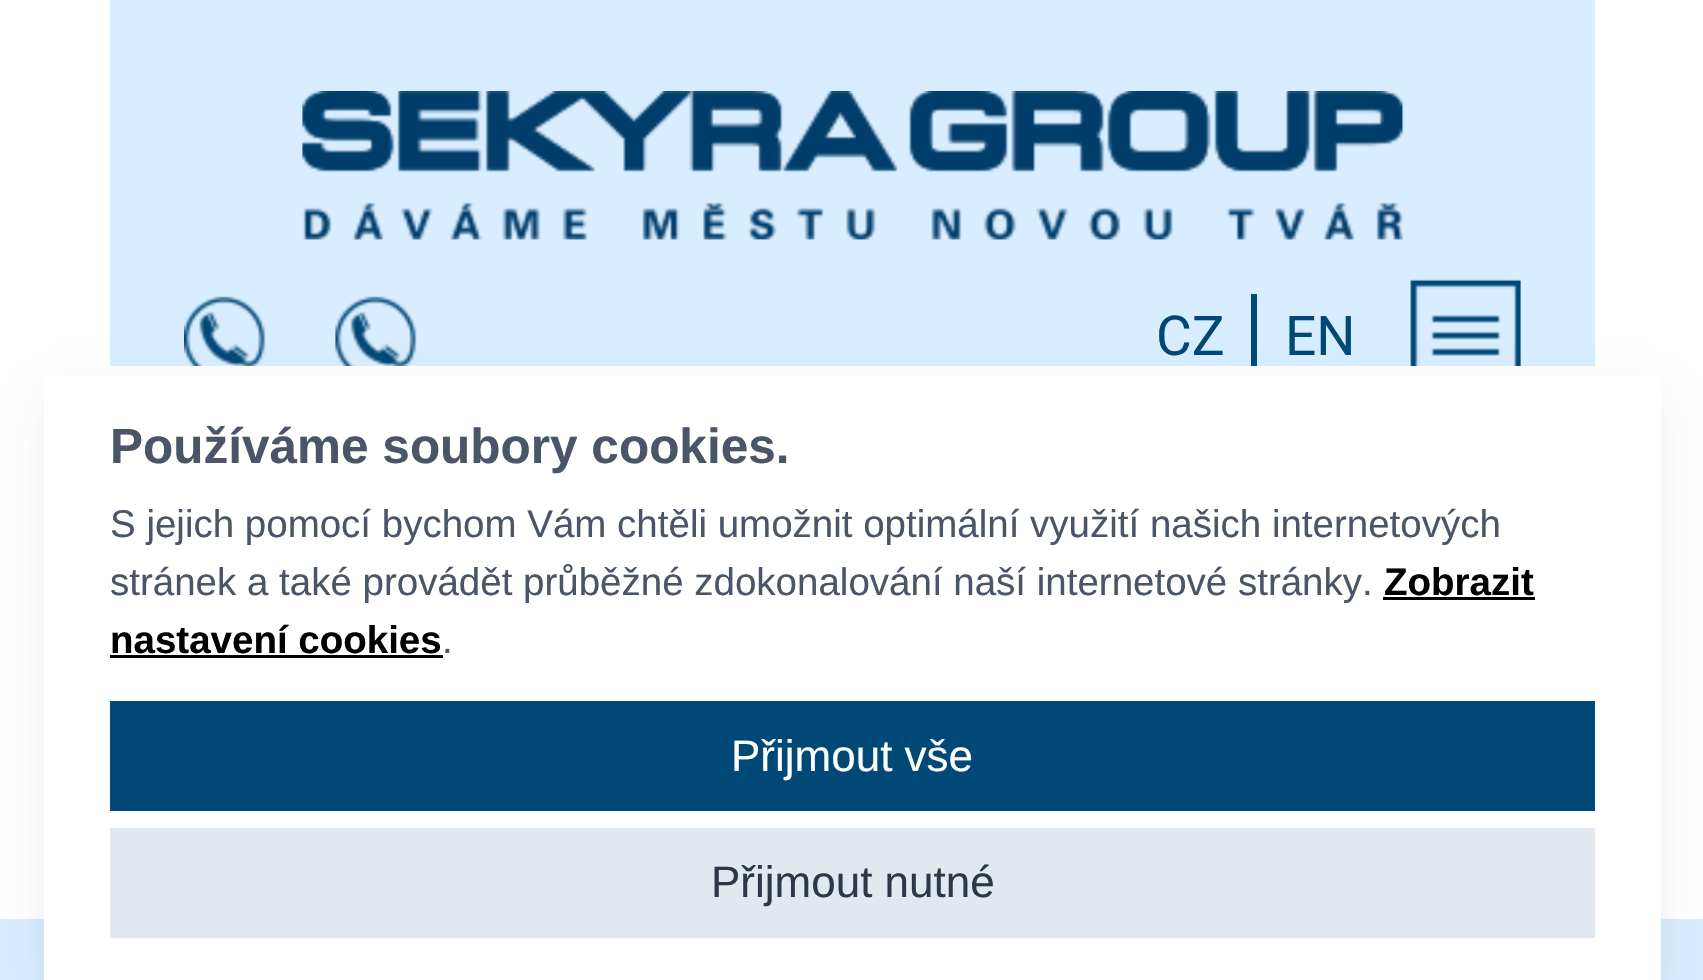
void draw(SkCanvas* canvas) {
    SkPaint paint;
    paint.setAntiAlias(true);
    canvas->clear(0xFFFFFFFF);
    paint.setColor(0xFFD8EDFF);
    canvas->drawRect(SkRect::MakeXYWH(110, 0, 1485, 366), paint);
    canvas->drawImageRect(SkImages::DeferredFromEncodedData(SkData::MakeFromFileName("img1.png")), SkRect::MakeXYWH(302, 91, 1102, 149), SkSamplingOptions());
    canvas->drawImageRect(SkImages::DeferredFromEncodedData(SkData::MakeFromFileName("img2.png")), SkRect::MakeXYWH(184, 296, 82, 70), SkSamplingOptions());
    canvas->drawImageRect(SkImages::DeferredFromEncodedData(SkData::MakeFromFileName("img3.png")), SkRect::MakeXYWH(335, 296, 82, 70), SkSamplingOptions());
    paint.setColor(0xFF004976);
    canvas->drawRect(SkRect::MakeXYWH(1251, 294, 6, 72), paint);
    SkFont font1(fontMgr->matchFamilyStyle("Roboto", SkFontStyle::Normal()), 55);
    font1.setSubpixel(true);
    canvas->drawString("CZ", 1156, 355, font1, paint);
    canvas->drawString("EN", 1285, 355, font1, paint);
    canvas->drawImageRect(SkImages::DeferredFromEncodedData(SkData::MakeFromFileName("img4.png")), SkRect::MakeXYWH(1410, 279, 111, 87), SkSamplingOptions());
    paint.setColor(0xFFD8EDFF);
    canvas->drawRect(SkRect::MakeXYWH(0, 919, 1703, 61), paint);
    paint.setColor(0x1A000000);
    paint.setMaskFilter(SkMaskFilter::MakeBlur(kNormal_SkBlurStyle, 20.5f));
    canvas->drawRect(SkRect::MakeXYWH(52, 402, 1601, 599), paint);
    paint.setMaskFilter(nullptr);
    paint.setColor(0xFFFFFFFF);
    canvas->drawRect(SkRect::MakeXYWH(44, 376, 1617, 604), paint);
    SkFont font2(fontMgr->matchFamilyStyle("Liberation Sans", SkFontStyle::Bold()), 49.5f);
    font2.setSubpixel(true);
    paint.setColor(0xFF4A5568);
    canvas->drawString("Používáme soubory cookies.", 110, 463, font2, paint);
    SkFont font3(fontMgr->matchFamilyStyle("Liberation Sans", SkFontStyle::Normal()), 38.5f);
    font3.setSubpixel(true);
    canvas->drawString("S jejich pomocí bychom Vám chtěli umožnit optimální využití našich internetových", 110, 537, font3, paint);
    canvas->drawString("stránek a také provádět průběžné zdokonalování naší internetové stránky.", 110, 595, font3, paint);
    SkFont font4(fontMgr->matchFamilyStyle("Liberation Sans", SkFontStyle::Bold()), 38.5f);
    font4.setSubpixel(true);
    paint.setColor(0xFF000000);
    canvas->drawString("Zobrazit", 1384, 595, font4, paint);
    canvas->drawRect(SkRect::MakeXYWH(1383, 597, 152, 3), paint);
    canvas->drawString("nastavení cookies", 110, 653, font4, paint);
    canvas->drawRect(SkRect::MakeXYWH(110, 655, 333, 3), paint);
    paint.setColor(0xFF4A5568);
    canvas->drawString(".", 442, 653, font3, paint);
    paint.setColor(0xFF004976);
    canvas->drawRect(SkRect::MakeXYWH(110, 701, 1485, 110), paint);
    SkFont font5(fontMgr->matchFamilyStyle("Liberation Sans", SkFontStyle::Normal()), 44);
    font5.setSubpixel(true);
    paint.setColor(0xFFFFFFFF);
    canvas->drawString("Přijmout vše", 731, 771, font5, paint);
    paint.setColor(0xFFE2E8F0);
    canvas->drawRect(SkRect::MakeXYWH(110, 828, 1485, 110), paint);
    paint.setColor(0xFF2D3748);
    canvas->drawString("Přijmout nutné", 711, 897, font5, paint);
}
